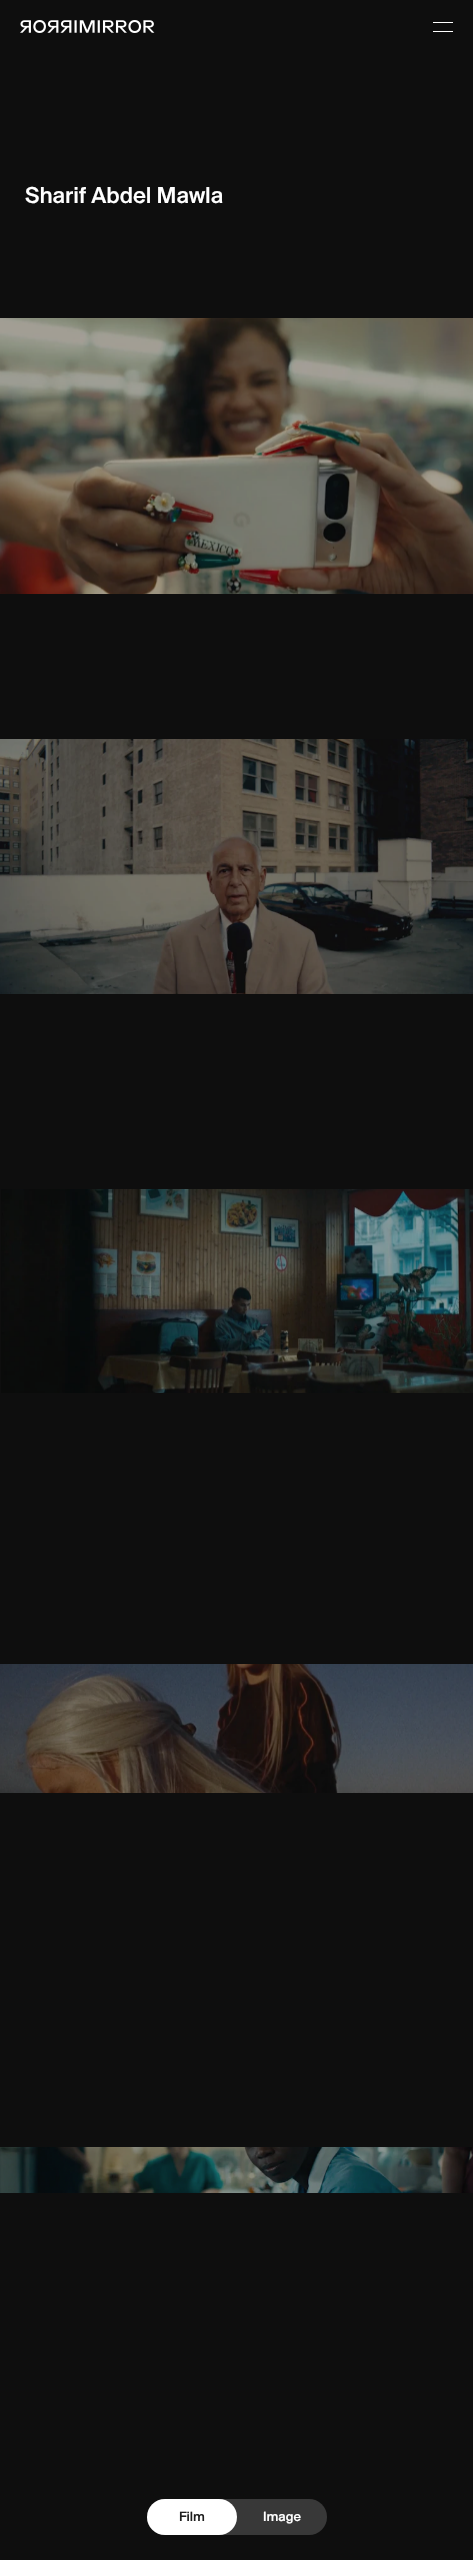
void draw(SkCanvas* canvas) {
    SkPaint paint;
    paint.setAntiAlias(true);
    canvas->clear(0xFF0E0E0E);
    canvas->drawImageRect(SkImages::DeferredFromEncodedData(SkData::MakeFromFileName("img1.png")), SkRect::MakeXYWH(20, 20, 135, 13), SkSamplingOptions());
    paint.setColor(0xFFFFFFFF);
    canvas->drawRect(SkRect::MakeXYWH(433, 22, 20, 1), paint);
    canvas->drawRect(SkRect::MakeXYWH(433, 31, 20, 1), paint);
    SkFont font1(fontMgr->matchFamilyStyle("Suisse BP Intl", SkFontStyle(500, SkFontStyle::kNormal_Width, SkFontStyle::kUpright_Slant)), 24);
    font1.setSubpixel(true);
    canvas->drawString("Sharif Abdel Mawla", 25, 203, font1, paint);
    canvas->drawImageRect(SkImages::DeferredFromEncodedData(SkData::MakeFromFileName("img2.png")), SkRect::MakeXYWH(0, 318, 473, 276), SkSamplingOptions());
    canvas->drawImageRect(SkImages::DeferredFromEncodedData(SkData::MakeFromFileName("img3.png")), SkRect::MakeXYWH(0, 739, 473, 255), SkSamplingOptions());
    canvas->drawImageRect(SkImages::DeferredFromEncodedData(SkData::MakeFromFileName("img4.png")), SkRect::MakeXYWH(1, 1189, 472, 204), SkSamplingOptions());
    canvas->drawImageRect(SkImages::DeferredFromEncodedData(SkData::MakeFromFileName("img5.png")), SkRect::MakeXYWH(0, 1664, 473, 129), SkSamplingOptions());
    canvas->drawImageRect(SkImages::DeferredFromEncodedData(SkData::MakeFromFileName("img6.png")), SkRect::MakeXYWH(0, 2147, 473, 46), SkSamplingOptions());
    paint.setColor(0xFF383838);
    canvas->drawRoundRect(SkRect::MakeXYWH(147, 2499, 180, 36), 18, 18, paint);
    paint.setColor(0xFFFFFFFF);
    canvas->drawRoundRect(SkRect::MakeXYWH(147, 2499, 90, 36), 18, 18, paint);
    SkFont font2(fontMgr->matchFamilyStyle("Suisse BP Intl", SkFontStyle(500, SkFontStyle::kNormal_Width, SkFontStyle::kUpright_Slant)), 14);
    font2.setSubpixel(true);
    paint.setColor(0xFF1F1F1F);
    canvas->drawString("Film", 179, 2521, font2, paint);
    paint.setColor(0xFFFFFFFF);
    canvas->drawString("Image", 263, 2521, font2, paint);
}
